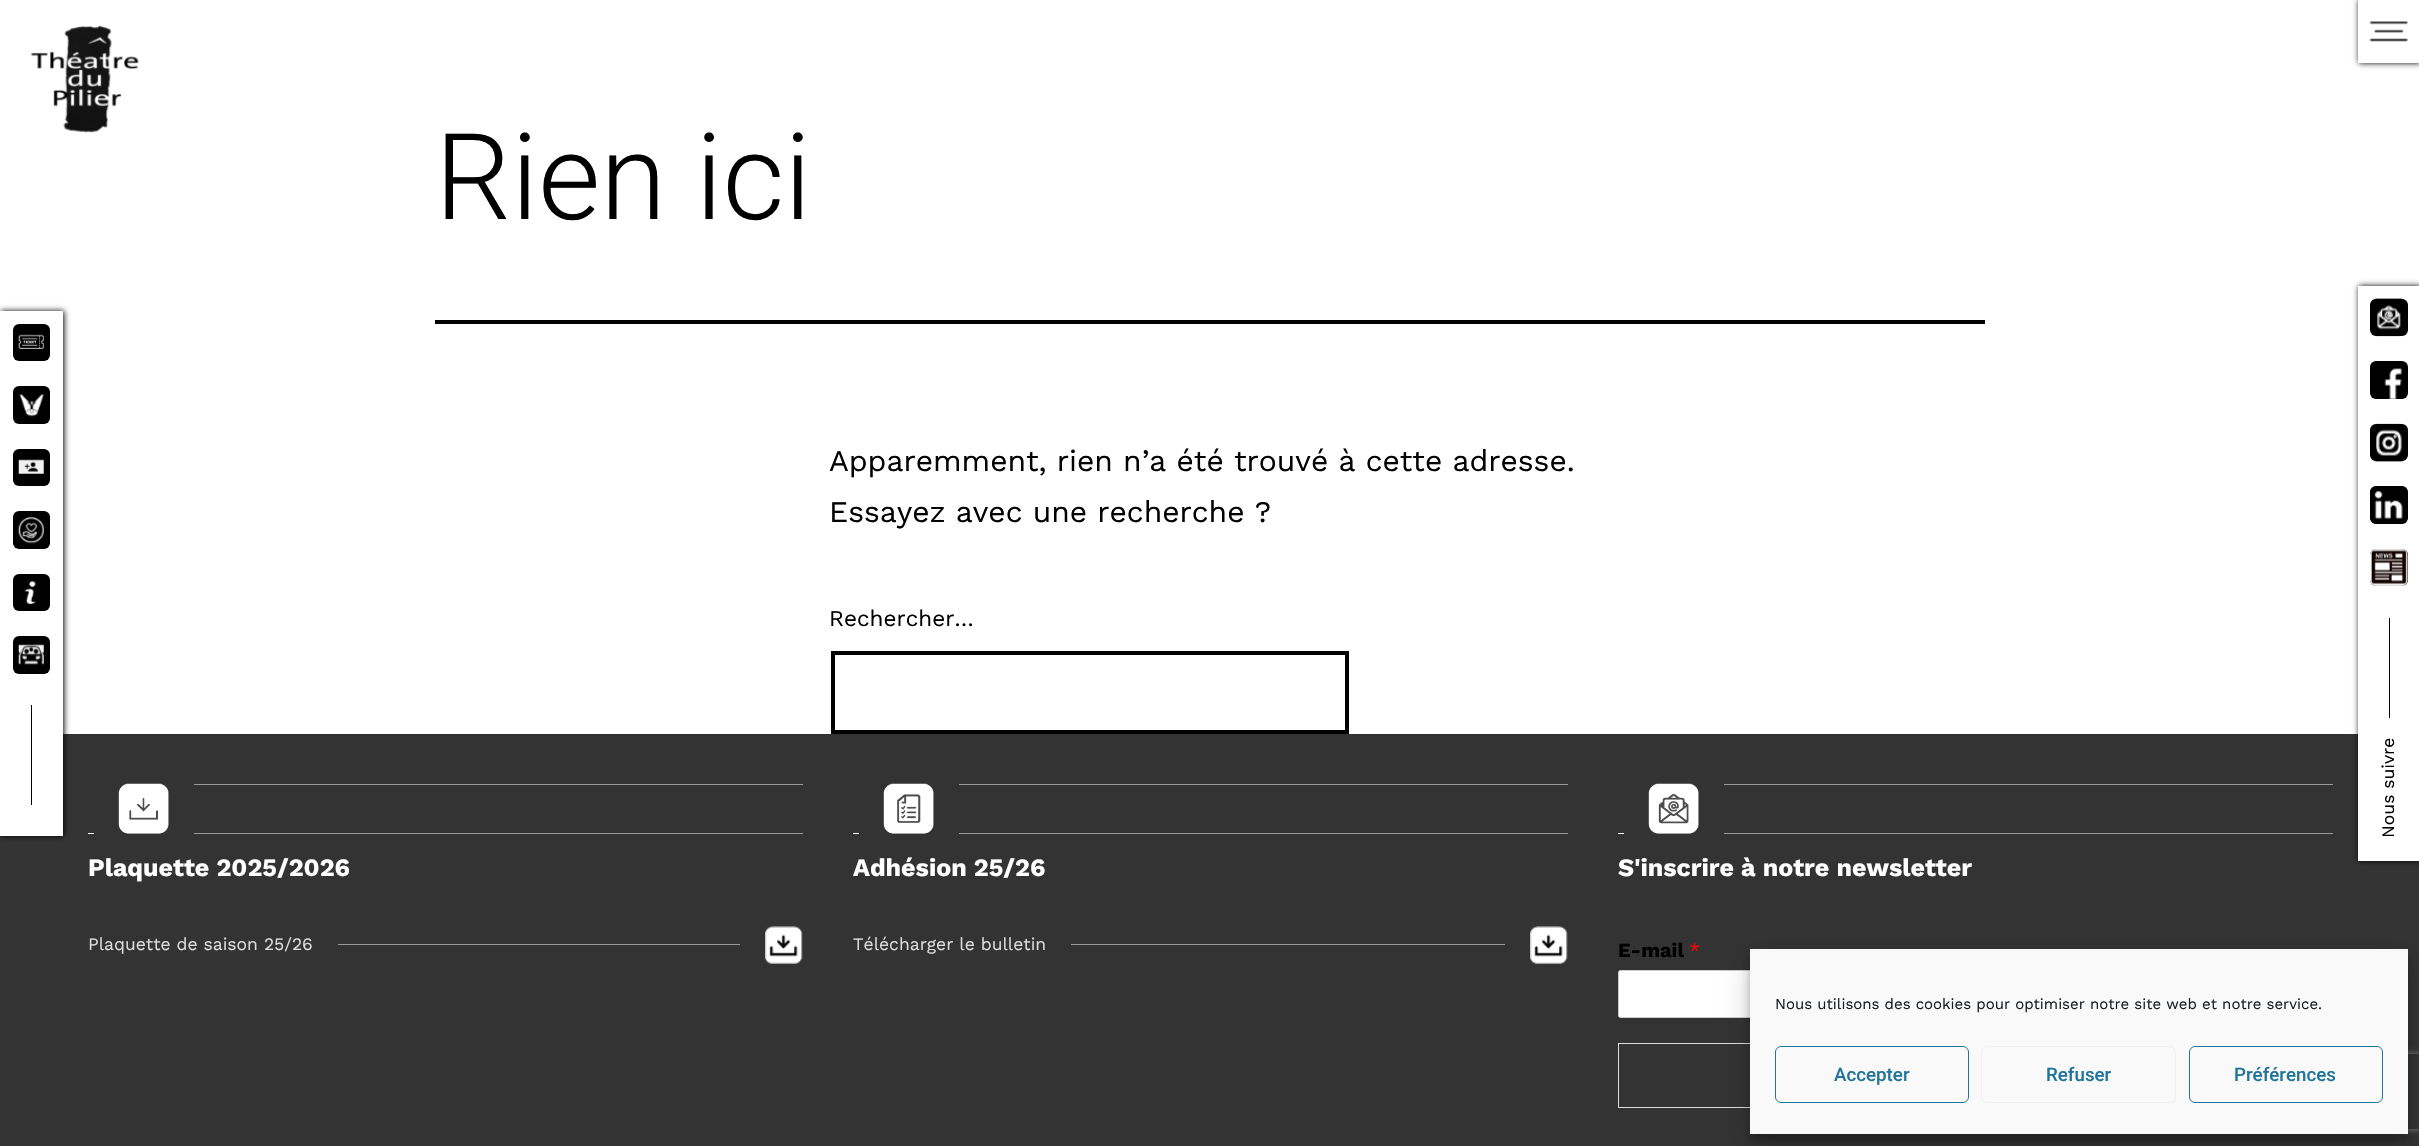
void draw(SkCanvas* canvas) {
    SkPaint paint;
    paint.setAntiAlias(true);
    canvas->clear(0xFFFFFFFF);
    canvas->drawImageRect(SkImages::DeferredFromEncodedData(SkData::MakeFromFileName("img1.png")), SkRect::MakeXYWH(31, 25, 108, 108), SkSamplingOptions());
    paint.setColor(0xFF000000);
    paint.setMaskFilter(SkMaskFilter::MakeBlur(kNormal_SkBlurStyle, 3));
    canvas->drawRect(SkRect::MakeXYWH(2359, 0, 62, 63), paint);
    paint.setMaskFilter(nullptr);
    paint.setColor(0xFFFFFFFF);
    canvas->drawRect(SkRect::MakeXYWH(2358, 0, 61, 63), paint);
    canvas->drawImageRect(SkImages::DeferredFromEncodedData(SkData::MakeFromFileName("img2.png")), SkRect::MakeXYWH(2369, 21, 39, 21), SkSamplingOptions());
    paint.setColor(0xFF000000);
    canvas->drawRect(SkRect::MakeXYWH(435, 320, 1550, 4), paint);
    SkFont font1(fontMgr->matchFamilyStyle("Roboto", SkFontStyle(300, SkFontStyle::kNormal_Width, SkFontStyle::kUpright_Slant)), 120);
    font1.setSubpixel(true);
    canvas->drawString("Rien ici", 435, 219, font1, paint);
    paint.setColor(0xFF333333);
    canvas->drawRect(SkRect::MakeXYWH(0, 734, 2419, 412), paint);
    paint.setColor(0xFF000000);
    paint.setMaskFilter(SkMaskFilter::MakeBlur(kNormal_SkBlurStyle, 3));
    canvas->drawRect(SkRect::MakeXYWH(1, 311, 63, 525), paint);
    paint.setMaskFilter(nullptr);
    paint.setColor(0xFFFFFFFF);
    canvas->drawRect(SkRect::MakeXYWH(0, 311, 63, 525), paint);
    paint.setColor(0xFF000000);
    canvas->drawRoundRect(SkRect::MakeXYWH(13, 324, 37, 37), 6, 6, paint);
    canvas->drawImageRect(SkImages::DeferredFromEncodedData(SkData::MakeFromFileName("img3.png")), SkRect::MakeXYWH(18, 334, 26, 15), SkSamplingOptions());
    canvas->drawRoundRect(SkRect::MakeXYWH(13, 386, 37, 38), 6, 6, paint);
    canvas->drawImageRect(SkImages::DeferredFromEncodedData(SkData::MakeFromFileName("img4.png")), SkRect::MakeXYWH(19, 394, 25, 23), SkSamplingOptions());
    canvas->drawRoundRect(SkRect::MakeXYWH(13, 449, 37, 37), 6, 6, paint);
    canvas->drawImageRect(SkImages::DeferredFromEncodedData(SkData::MakeFromFileName("img5.png")), SkRect::MakeXYWH(18, 459, 26, 15), SkSamplingOptions());
    canvas->drawRoundRect(SkRect::MakeXYWH(13, 511, 37, 38), 6, 6, paint);
    canvas->drawImageRect(SkImages::DeferredFromEncodedData(SkData::MakeFromFileName("img6.png")), SkRect::MakeXYWH(18, 517, 26, 27), SkSamplingOptions());
    canvas->drawRoundRect(SkRect::MakeXYWH(13, 574, 37, 37), 6, 6, paint);
    canvas->drawImageRect(SkImages::DeferredFromEncodedData(SkData::MakeFromFileName("img7.png")), SkRect::MakeXYWH(24, 580, 12, 25), SkSamplingOptions());
    canvas->drawRoundRect(SkRect::MakeXYWH(13, 636, 37, 38), 6, 6, paint);
    canvas->drawImageRect(SkImages::DeferredFromEncodedData(SkData::MakeFromFileName("img8.png")), SkRect::MakeXYWH(18, 644, 26, 21), SkSamplingOptions());
    canvas->drawRect(SkRect::MakeXYWH(31, 705, 1, 100), paint);
    SkFont font2(fontMgr->matchFamilyStyle("Work Sans", SkFontStyle::Normal()), 30);
    font2.setSubpixel(true);
    canvas->drawString("Apparemment, rien n’a été trouvé à cette adresse.", 829, 471, font2, paint);
    canvas->drawString("Essayez avec une recherche ?", 829, 522, font2, paint);
    SkFont font3(fontMgr->matchFamilyStyle("Work Sans", SkFontStyle::Normal()), 22.5f);
    font3.setSubpixel(true);
    canvas->drawString("Rechercher…", 829, 626, font3, paint);
    paint.setStyle(SkPaint::kStroke_Style);
    paint.setStrokeWidth(4);
    canvas->drawRect(SkRect::MakeXYWH(833, 653, 514, 79), paint);
    paint.setStyle(SkPaint::kFill_Style);
    paint.setMaskFilter(SkMaskFilter::MakeBlur(kNormal_SkBlurStyle, 3));
    canvas->drawRect(SkRect::MakeXYWH(2359, 286, 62, 575), paint);
    paint.setMaskFilter(nullptr);
    paint.setColor(0xFFFFFFFF);
    canvas->drawRect(SkRect::MakeXYWH(2358, 286, 61, 575), paint);
    paint.setColor(0xFF000000);
    canvas->drawRoundRect(SkRect::MakeXYWH(2370, 299, 38, 37), 6, 6, paint);
    canvas->drawImageRect(SkImages::DeferredFromEncodedData(SkData::MakeFromFileName("img9.png")), SkRect::MakeXYWH(2370, 298, 36, 39), SkSamplingOptions());
    canvas->drawRoundRect(SkRect::MakeXYWH(2370, 361, 38, 38), 6, 6, paint);
    canvas->drawImageRect(SkImages::DeferredFromEncodedData(SkData::MakeFromFileName("img10.png")), SkRect::MakeXYWH(2374, 368, 28, 31), SkSamplingOptions());
    canvas->drawRoundRect(SkRect::MakeXYWH(2370, 424, 38, 37), 6, 6, paint);
    canvas->drawImageRect(SkImages::DeferredFromEncodedData(SkData::MakeFromFileName("img11.png")), SkRect::MakeXYWH(2370, 423, 36, 39), SkSamplingOptions());
    canvas->drawRoundRect(SkRect::MakeXYWH(2370, 486, 38, 38), 6, 6, paint);
    canvas->drawImageRect(SkImages::DeferredFromEncodedData(SkData::MakeFromFileName("img12.png")), SkRect::MakeXYWH(2370, 486, 38, 38), SkSamplingOptions());
    canvas->drawRoundRect(SkRect::MakeXYWH(2370, 549, 38, 37), 6, 6, paint);
    canvas->drawImageRect(SkImages::DeferredFromEncodedData(SkData::MakeFromFileName("img13.png")), SkRect::MakeXYWH(2370, 549, 38, 37), SkSamplingOptions());
    canvas->drawRect(SkRect::MakeXYWH(2389, 618, 1, 100), paint);
    SkFont font4(fontMgr->matchFamilyStyle("Work Sans", SkFontStyle::Normal()), 17.5f);
    font4.setSubpixel(true);
    canvas->save();
    canvas->rotate(-90, 2394, 838);
    canvas->drawString("Nous suivre", 2394, 838, font4, paint);
    canvas->restore();
    paint.setColor(0xFFFFFFFF);
    canvas->drawRect(SkRect::MakeXYWH(88, 833, 6, 1), paint);
    canvas->drawImageRect(SkImages::DeferredFromEncodedData(SkData::MakeFromFileName("img14.png")), SkRect::MakeXYWH(118, 783, 51, 51), SkSamplingOptions());
    paint.setColor(0xFF999999);
    canvas->drawRect(SkRect::MakeXYWH(194, 784, 609, 1), paint);
    canvas->drawRect(SkRect::MakeXYWH(194, 833, 609, 1), paint);
    SkFont font5(fontMgr->matchFamilyStyle("Work Sans", SkFontStyle::Bold()), 25);
    font5.setSubpixel(true);
    paint.setColor(0xFFFFFFFF);
    canvas->drawString("Plaquette 2025/2026", 88, 876, font5, paint);
    paint.setColor(0xFFDDDDDD);
    canvas->drawString("Plaquette de saison 25/26", 88, 950, font4, paint);
    paint.setColor(0xFF999999);
    canvas->drawRect(SkRect::MakeXYWH(338, 944, 402, 1), paint);
    canvas->drawImageRect(SkImages::DeferredFromEncodedData(SkData::MakeFromFileName("img15.png")), SkRect::MakeXYWH(765, 926, 38, 38), SkSamplingOptions());
    paint.setColor(0xFFFFFFFF);
    canvas->drawRect(SkRect::MakeXYWH(853, 833, 6, 1), paint);
    canvas->drawImageRect(SkImages::DeferredFromEncodedData(SkData::MakeFromFileName("img16.png")), SkRect::MakeXYWH(883, 783, 51, 51), SkSamplingOptions());
    paint.setColor(0xFF999999);
    canvas->drawRect(SkRect::MakeXYWH(959, 784, 609, 1), paint);
    canvas->drawRect(SkRect::MakeXYWH(959, 833, 609, 1), paint);
    paint.setColor(0xFFFFFFFF);
    canvas->drawString("Adhésion 25/26", 853, 876, font5, paint);
    paint.setColor(0xFFDDDDDD);
    canvas->drawString("Télécharger le bulletin", 853, 950, font4, paint);
    paint.setColor(0xFF999999);
    canvas->drawRect(SkRect::MakeXYWH(1071, 944, 434, 1), paint);
    canvas->drawImageRect(SkImages::DeferredFromEncodedData(SkData::MakeFromFileName("img15.png")), SkRect::MakeXYWH(1530, 926, 38, 38), SkSamplingOptions());
    paint.setColor(0xFFFFFFFF);
    canvas->drawRect(SkRect::MakeXYWH(1618, 833, 6, 1), paint);
    canvas->drawImageRect(SkImages::DeferredFromEncodedData(SkData::MakeFromFileName("img17.png")), SkRect::MakeXYWH(1648, 783, 51, 51), SkSamplingOptions());
    paint.setColor(0xFF999999);
    canvas->drawRect(SkRect::MakeXYWH(1724, 784, 609, 1), paint);
    canvas->drawRect(SkRect::MakeXYWH(1724, 833, 609, 1), paint);
    paint.setColor(0xFFFFFFFF);
    canvas->drawString("S'inscrire à notre newsletter", 1618, 876, font5, paint);
    SkFont font6(fontMgr->matchFamilyStyle("Work Sans", SkFontStyle::Bold()), 20);
    font6.setSubpixel(true);
    paint.setColor(0xFF000000);
    canvas->drawString("E-mail", 1618, 957, font6, paint);
    SkFont font7(fontMgr->matchFamilyStyle("Work Sans", SkFontStyle::Normal()), 20);
    font7.setSubpixel(true);
    paint.setColor(0xFFFF0000);
    canvas->drawString("*", 1689, 957, font7, paint);
    paint.setColor(0xFFFFFFFF);
    canvas->drawRoundRect(SkRect::MakeXYWH(1618.5f, 970.5f, 427, 47), 2, 2, paint);
    paint.setStyle(SkPaint::kStroke_Style);
    paint.setStrokeWidth(1);
    paint.setColor(0xFFCCCCCC);
    canvas->drawRoundRect(SkRect::MakeXYWH(1618.5f, 970.5f, 427, 47), 2, 2, paint);
    paint.setColor(0xFFDDDDDD);
    canvas->drawRect(SkRect::MakeXYWH(1618.5f, 1043.5f, 136, 64), paint);
    paint.setStyle(SkPaint::kFill_Style);
    paint.setColor(0x3B000000);
    paint.setMaskFilter(SkMaskFilter::MakeBlur(kNormal_SkBlurStyle, 4));
    canvas->drawRect(SkRect::MakeXYWH(1750, 956, 658, 185), paint);
    paint.setMaskFilter(nullptr);
    paint.setColor(0x30000000);
    paint.setMaskFilter(SkMaskFilter::MakeBlur(kNormal_SkBlurStyle, 12.5f));
    canvas->drawRect(SkRect::MakeXYWH(1750, 961, 658, 185), paint);
    paint.setMaskFilter(nullptr);
    canvas->save();
    canvas->clipPath(SkPathBuilder(SkPathFillType::kEvenOdd).moveTo(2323, 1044).lineTo(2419, 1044).lineTo(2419, 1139).lineTo(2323, 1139).close().moveTo(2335.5f, 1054).lineTo(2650.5f, 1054).cubicTo(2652, 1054, 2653, 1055, 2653, 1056.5f).lineTo(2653, 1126.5f).cubicTo(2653, 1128, 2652, 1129, 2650.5f, 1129).lineTo(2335.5f, 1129).cubicTo(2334, 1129, 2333, 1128, 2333, 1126.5f).lineTo(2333, 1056.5f).cubicTo(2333, 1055, 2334, 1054, 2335.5f, 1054).close().detach(), true);
    paint.setColor(0xFF808080);
    paint.setMaskFilter(SkMaskFilter::MakeBlur(kNormal_SkBlurStyle, 3));
    canvas->drawRoundRect(SkRect::MakeXYWH(2333, 1054, 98, 75), 2.5f, 2.5f, paint);
    paint.setMaskFilter(nullptr);
    canvas->restore();
    paint.setColor(0xFFF9F9F9);
    canvas->drawRect(SkRect::MakeXYWH(1750, 949, 658, 185), paint);
    SkFont font8(fontMgr->matchFamilyStyle("Work Sans", SkFontStyle::Normal()), 15);
    font8.setSubpixel(true);
    paint.setColor(0xFF191E23);
    canvas->drawString("Nous utilisons des cookies pour optimiser notre site web et notre service.", 1775, 1009, font8, paint);
    paint.setStyle(SkPaint::kStroke_Style);
    paint.setColor(0xFF21759B);
    canvas->drawRoundRect(SkRect::MakeXYWH(1775.5f, 1046.5f, 193, 56), 5.5f, 5.5f, paint);
    SkFont font9(fontMgr->matchFamilyStyle("Roboto", SkFontStyle(500, SkFontStyle::kNormal_Width, SkFontStyle::kUpright_Slant)), 18.75f);
    font9.setSubpixel(true);
    paint.setStyle(SkPaint::kFill_Style);
    canvas->drawString("Accepter", 1834, 1081, font9, paint);
    paint.setStyle(SkPaint::kStroke_Style);
    paint.setColor(0xFFF1F1F1);
    canvas->drawRoundRect(SkRect::MakeXYWH(1981.5f, 1046.5f, 194, 56), 5.5f, 5.5f, paint);
    paint.setStyle(SkPaint::kFill_Style);
    paint.setColor(0xFF21759B);
    canvas->drawString("Refuser", 2046, 1081, font9, paint);
    paint.setStyle(SkPaint::kStroke_Style);
    canvas->drawRoundRect(SkRect::MakeXYWH(2189.5f, 1046.5f, 193, 56), 5.5f, 5.5f, paint);
    paint.setStyle(SkPaint::kFill_Style);
    canvas->drawString("Préférences", 2234, 1081, font9, paint);
}
